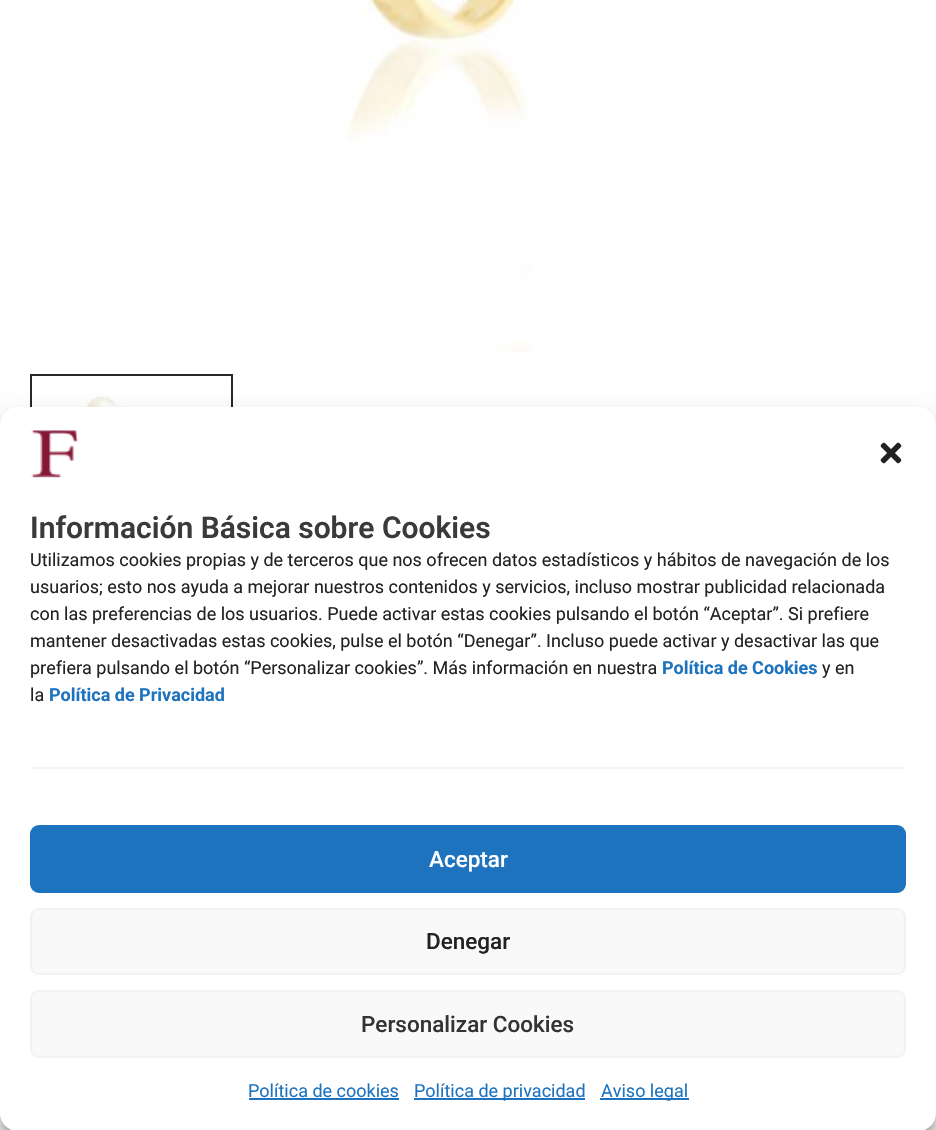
void draw(SkCanvas* canvas) {
    SkPaint paint;
    paint.setAntiAlias(true);
    canvas->clear(0xFFFFFFFF);
    canvas->drawImageRect(SkImages::DeferredFromEncodedData(SkData::MakeFromFileName("img1.png")), SkRect::MakeXYWH(345, 0, 188, 352), SkSamplingOptions());
    canvas->drawImageRect(SkImages::DeferredFromEncodedData(SkData::MakeFromFileName("img2.png")), SkRect::MakeXYWH(83, 395, 74, 12), SkSamplingOptions());
    paint.setStyle(SkPaint::kStroke_Style);
    paint.setStrokeWidth(2);
    paint.setColor(0xFF272727);
    canvas->drawRect(SkRect::MakeXYWH(31, 375, 201, 200), paint);
    paint.setStyle(SkPaint::kFill_Style);
    paint.setColor(0x3B000000);
    paint.setMaskFilter(SkMaskFilter::MakeBlur(kNormal_SkBlurStyle, 4.5f));
    canvas->drawRoundRect(SkRect::MakeXYWH(0, 416, 936, 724), 18, 18, paint);
    paint.setMaskFilter(nullptr);
    paint.setColor(0x30000000);
    paint.setMaskFilter(SkMaskFilter::MakeBlur(kNormal_SkBlurStyle, 15));
    canvas->drawRoundRect(SkRect::MakeXYWH(0, 422, 936, 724), 18, 18, paint);
    paint.setMaskFilter(nullptr);
    paint.setColor(0xFF808080);
    paint.setMaskFilter(SkMaskFilter::MakeBlur(kNormal_SkBlurStyle, 4));
    canvas->drawRoundRect(SkRect::MakeXYWH(831, 1020, 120, 90), 3, 3, paint);
    paint.setMaskFilter(nullptr);
    paint.setColor(0xFFFFFFFF);
    canvas->drawRoundRect(SkRect::MakeXYWH(0, 407, 936, 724), 18, 18, paint);
    canvas->drawImageRect(SkImages::DeferredFromEncodedData(SkData::MakeFromFileName("img3.png")), SkRect::MakeXYWH(31, 430, 47, 48), SkSamplingOptions());
    canvas->drawImageRect(SkImages::DeferredFromEncodedData(SkData::MakeFromFileName("img4.png")), SkRect::MakeXYWH(880, 442, 22, 22), SkSamplingOptions());
    SkFont font1(fontMgr->matchFamilyStyle("Roboto", SkFontStyle(600, SkFontStyle::kNormal_Width, SkFontStyle::kUpright_Slant)), 30);
    font1.setSubpixel(true);
    paint.setColor(0xFF3A3A3A);
    canvas->drawString("Información Básica sobre Cookies", 30, 538, font1, paint);
    SkFont font2(fontMgr->matchFamilyStyle("Roboto", SkFontStyle::Normal()), 18);
    font2.setSubpixel(true);
    paint.setColor(0xFF222222);
    canvas->drawString("Utilizamos cookies propias y de terceros que nos ofrecen datos estadísticos y hábitos de navegación de los", 30, 566, font2, paint);
    canvas->drawString("usuarios; esto nos ayuda a mejorar nuestros contenidos y servicios, incluso mostrar publicidad relacionada", 30, 593, font2, paint);
    canvas->drawString("con las preferencias de los usuarios. Puede activar estas cookies pulsando el botón “Aceptar”. Si prefiere", 30, 620, font2, paint);
    canvas->drawString("mantener desactivadas estas cookies, pulse el botón “Denegar”. Incluso puede activar y desactivar las que", 30, 647, font2, paint);
    canvas->drawString("prefiera pulsando el botón “Personalizar cookies”. Más información en nuestra", 30, 674, font2, paint);
    SkFont font3(fontMgr->matchFamilyStyle("Roboto", SkFontStyle::Bold()), 18);
    font3.setSubpixel(true);
    paint.setColor(0xFF1E73BE);
    canvas->drawString("Política de Cookies", 662, 674, font3, paint);
    paint.setColor(0xFF222222);
    canvas->drawString("y en", 822, 674, font2, paint);
    canvas->drawString("la", 30, 701, font2, paint);
    paint.setColor(0xFF1E73BE);
    canvas->drawString("Política de Privacidad", 49, 701, font3, paint);
    paint.setColor(0xFFF2F5F7);
    canvas->drawRect(SkRect::MakeXYWH(30, 767, 876, 2), paint);
    paint.setColor(0xFF1E73BE);
    canvas->drawRoundRect(SkRect::MakeXYWH(31, 826, 874, 66), 8, 8, paint);
    paint.setStyle(SkPaint::kStroke_Style);
    canvas->drawRoundRect(SkRect::MakeXYWH(31, 826, 874, 66), 8, 8, paint);
    SkFont font4(fontMgr->matchFamilyStyle("Roboto", SkFontStyle(500, SkFontStyle::kNormal_Width, SkFontStyle::kUpright_Slant)), 22.5f);
    font4.setSubpixel(true);
    paint.setStyle(SkPaint::kFill_Style);
    paint.setColor(0xFFFFFFFF);
    canvas->drawString("Aceptar", 429, 867, font4, paint);
    paint.setColor(0xFFF9F9F9);
    canvas->drawRoundRect(SkRect::MakeXYWH(31, 909, 874, 65), 8, 8, paint);
    paint.setStyle(SkPaint::kStroke_Style);
    paint.setColor(0xFFF2F2F2);
    canvas->drawRoundRect(SkRect::MakeXYWH(31, 909, 874, 65), 8, 8, paint);
    paint.setStyle(SkPaint::kFill_Style);
    paint.setColor(0xFF222222);
    canvas->drawString("Denegar", 426, 949, font4, paint);
    paint.setColor(0xFFF9F9F9);
    canvas->drawRoundRect(SkRect::MakeXYWH(31, 991, 874, 66), 8, 8, paint);
    paint.setStyle(SkPaint::kStroke_Style);
    paint.setColor(0xFFF2F2F2);
    canvas->drawRoundRect(SkRect::MakeXYWH(31, 991, 874, 66), 8, 8, paint);
    paint.setStyle(SkPaint::kFill_Style);
    paint.setColor(0xFF333333);
    canvas->drawString("Personalizar Cookies", 361, 1032, font4, paint);
    paint.setColor(0xFF1E73BE);
    canvas->drawString("Política de cookies", 248, 1097, font2, paint);
    canvas->drawRect(SkRect::MakeXYWH(249, 1098, 150, 2), paint);
    canvas->drawRect(SkRect::MakeXYWH(414, 1098, 171, 2), paint);
    canvas->drawString("Política de privacidad", 414, 1097, font2, paint);
    canvas->drawRect(SkRect::MakeXYWH(600, 1098, 89, 2), paint);
    canvas->drawString("Aviso legal", 601, 1097, font2, paint);
}
